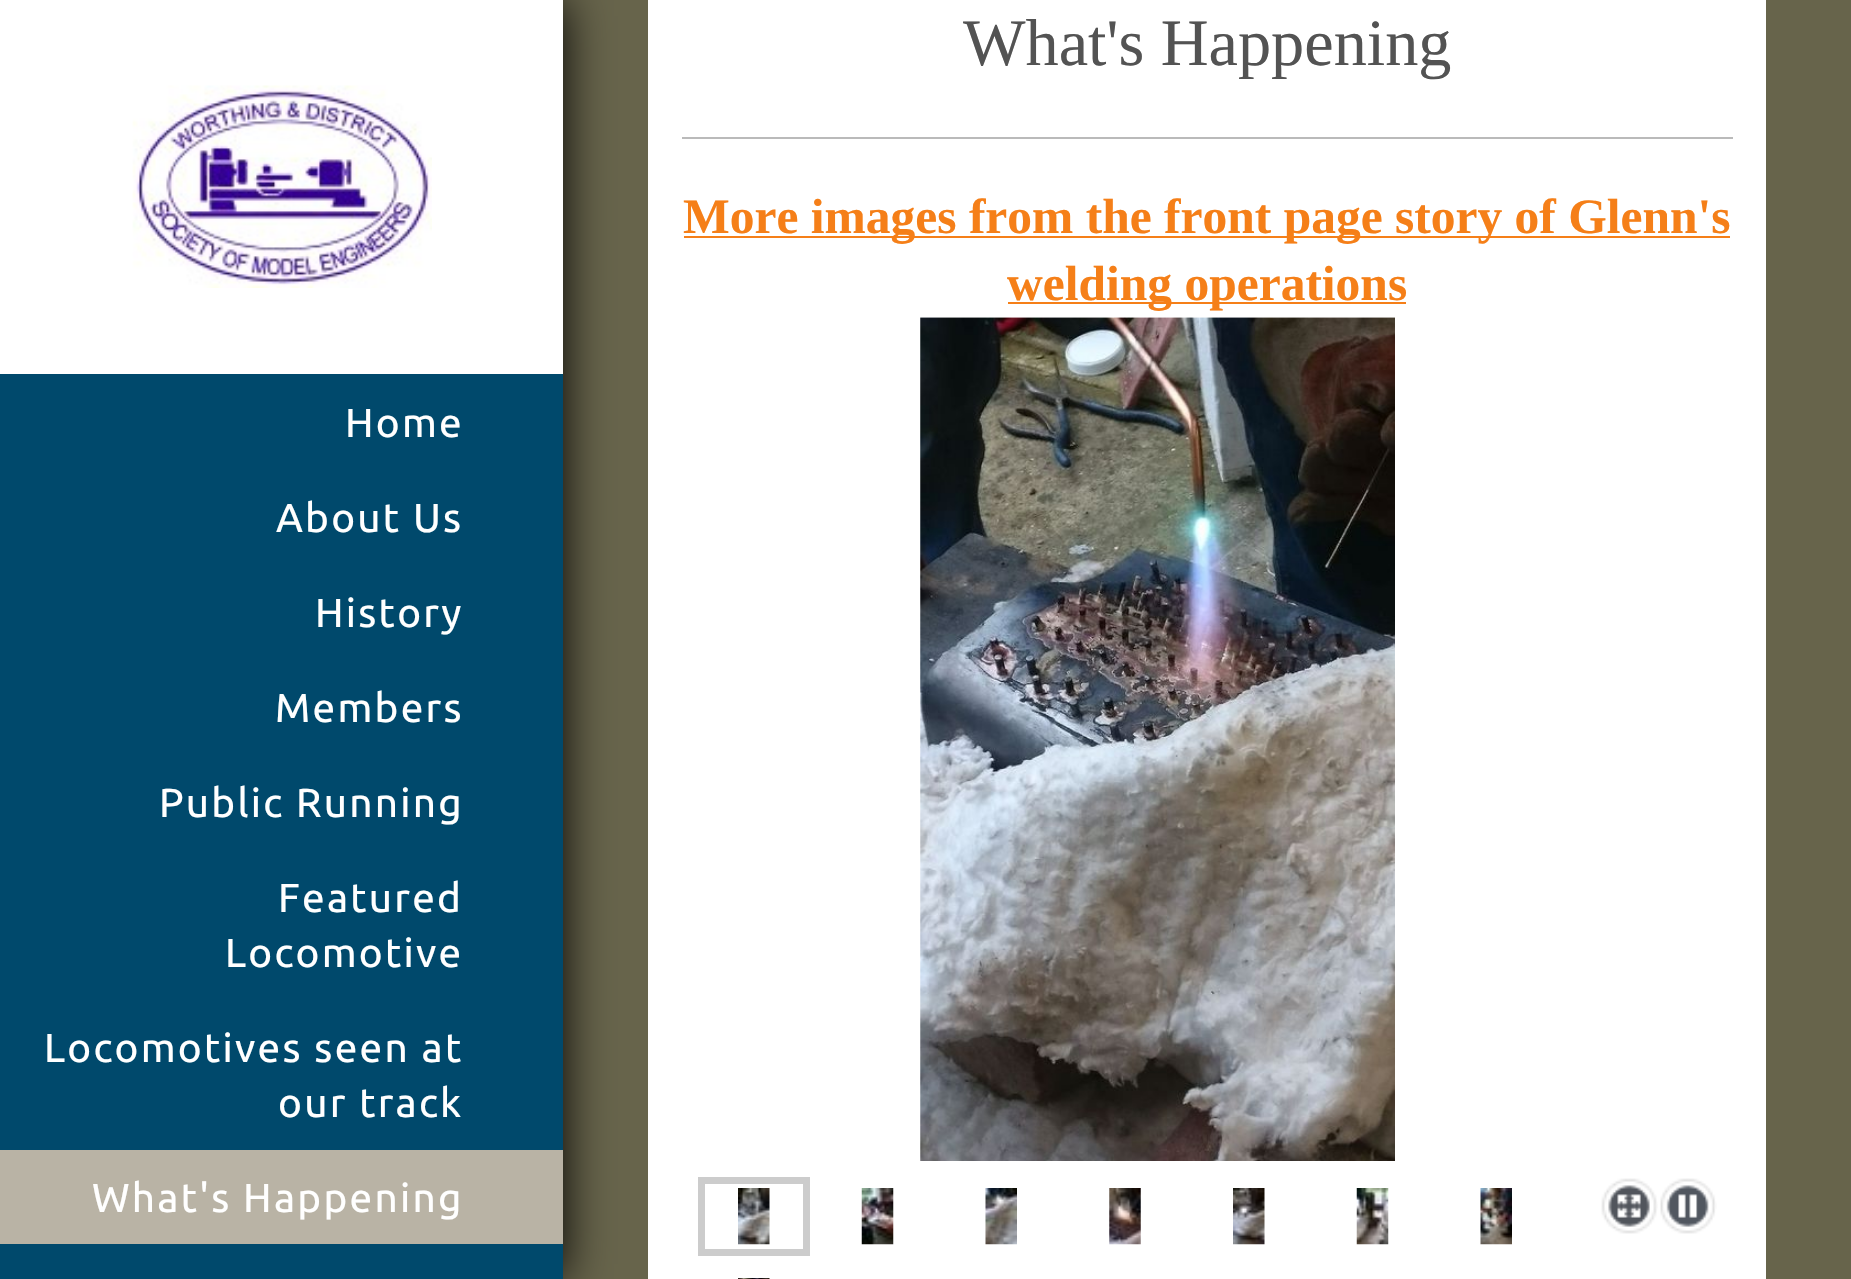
void draw(SkCanvas* canvas) {
    SkPaint paint;
    paint.setAntiAlias(true);
    auto spacedText = [&](const char* s, float x, float y, const SkFont& font, const SkPaint& ink, float letter, float word) {
        std::vector<SkGlyphID> glyphs(font.countText(s, strlen(s), SkTextEncoding::kUTF8));
        std::vector<float> xs(glyphs.size());
        font.textToGlyphs(s, strlen(s), SkTextEncoding::kUTF8, glyphs);
        font.getXPos(glyphs, xs, x);
        float extra = 0;
        for (size_t i = 0; i < glyphs.size(); i++) {
            xs[i] += extra;
            extra += letter + word * (glyphs[i] == font.unicharToGlyph(' '));
        }
        canvas->drawTextBlob(SkTextBlob::MakeFromPosHGlyphs(glyphs, xs, y, font), 0, 0, ink);
    };
    canvas->clear(0xFF67644B);
    paint.setColor(0xFF000000);
    paint.setMaskFilter(SkMaskFilter::MakeBlur(kNormal_SkBlurStyle, 22.5f));
    canvas->drawRect(SkRect::MakeXYWH(0, 0, 563, 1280), paint);
    paint.setMaskFilter(nullptr);
    paint.setColor(0xFFFFFFFF);
    canvas->drawRect(SkRect::MakeXYWH(0, 0, 563, 374), paint);
    canvas->drawRect(SkRect::MakeXYWH(648, 0, 1118, 1279), paint);
    SkFont font1(fontMgr->matchFamilyStyle("Liberation Serif", SkFontStyle::Normal()), 66.25f);
    font1.setSubpixel(true);
    paint.setColor(0xFF535353);
    canvas->drawString("What's Happening", 963, 65, font1, paint);
    paint.setColor(0xFFBABABA);
    canvas->drawRect(SkRect::MakeXYWH(682, 137, 1051, 2), paint);
    paint.setColor(0xFFF57F18);
    canvas->drawRect(SkRect::MakeXYWH(684, 236, 1046, 2), paint);
    SkFont font2(fontMgr->matchFamilyStyle("Liberation Serif", SkFontStyle::Bold()), 49.5f);
    font2.setSubpixel(true);
    canvas->drawString("More images from the front page story of Glenn's", 683, 233, font2, paint);
    canvas->drawRect(SkRect::MakeXYWH(1008, 302, 398, 2), paint);
    canvas->drawString("welding operations", 1007, 300, font2, paint);
    canvas->drawImageRect(SkImages::DeferredFromEncodedData(SkData::MakeFromFileName("img1.png")), SkRect::MakeXYWH(920, 317, 475, 844), SkSamplingOptions());
    paint.setStyle(SkPaint::kStroke_Style);
    paint.setStrokeWidth(7);
    paint.setColor(0xFFCCCCCC);
    canvas->drawRect(SkRect::MakeXYWH(701.5f, 1180.5f, 105, 72), paint);
    canvas->drawImageRect(SkImages::DeferredFromEncodedData(SkData::MakeFromFileName("img2.png")), SkRect::MakeXYWH(738, 1188, 32, 57), SkSamplingOptions());
    canvas->drawImageRect(SkImages::DeferredFromEncodedData(SkData::MakeFromFileName("img3.png")), SkRect::MakeXYWH(861, 1188, 33, 57), SkSamplingOptions());
    canvas->drawImageRect(SkImages::DeferredFromEncodedData(SkData::MakeFromFileName("img4.png")), SkRect::MakeXYWH(985, 1188, 32, 57), SkSamplingOptions());
    canvas->drawImageRect(SkImages::DeferredFromEncodedData(SkData::MakeFromFileName("img5.png")), SkRect::MakeXYWH(1109, 1188, 32, 57), SkSamplingOptions());
    canvas->drawImageRect(SkImages::DeferredFromEncodedData(SkData::MakeFromFileName("img6.png")), SkRect::MakeXYWH(1233, 1188, 32, 57), SkSamplingOptions());
    canvas->drawImageRect(SkImages::DeferredFromEncodedData(SkData::MakeFromFileName("img7.png")), SkRect::MakeXYWH(1356, 1188, 33, 57), SkSamplingOptions());
    canvas->drawImageRect(SkImages::DeferredFromEncodedData(SkData::MakeFromFileName("img8.png")), SkRect::MakeXYWH(1480, 1188, 32, 57), SkSamplingOptions());
    canvas->drawImageRect(SkImages::DeferredFromEncodedData(SkData::MakeFromFileName("img9.png")), SkRect::MakeXYWH(1601, 1178, 57, 56), SkSamplingOptions());
    canvas->drawImageRect(SkImages::DeferredFromEncodedData(SkData::MakeFromFileName("img10.png")), SkRect::MakeXYWH(1660, 1178, 57, 56), SkSamplingOptions());
    canvas->drawImageRect(SkImages::DeferredFromEncodedData(SkData::MakeFromFileName("img11.png")), SkRect::MakeXYWH(738, 1278, 32, 1), SkSamplingOptions());
    canvas->drawImageRect(SkImages::DeferredFromEncodedData(SkData::MakeFromFileName("img12.png")), SkRect::MakeXYWH(132, 85, 300, 203), SkSamplingOptions());
    paint.setStyle(SkPaint::kFill_Style);
    paint.setColor(0xFF00496C);
    canvas->drawRect(SkRect::MakeXYWH(0, 374, 563, 905), paint);
    SkFont font3(fontMgr->matchFamilyStyle("Ubuntu", SkFontStyle::Normal()), 40.5f);
    font3.setSubpixel(true);
    paint.setColor(0xFFFFFFFF);
    spacedText("Home", 345, 437, font3, paint, 2.25f, 0);
    spacedText("About Us", 276, 532, font3, paint, 2.25f, 0);
    spacedText("History", 315, 627, font3, paint, 2.25f, 0);
    spacedText("Members", 275, 722, font3, paint, 2.25f, 0);
    spacedText("Public Running", 159, 817, font3, paint, 2.25f, 0);
    spacedText("Featured", 278, 912, font3, paint, 2.25f, 0);
    spacedText("Locomotive", 225, 967, font3, paint, 2.25f, 0);
    spacedText("Locomotives seen at", 44, 1062, font3, paint, 2.25f, 0);
    spacedText("our track", 278, 1117, font3, paint, 2.25f, 0);
    paint.setColor(0xFFB9B3A5);
    canvas->drawRect(SkRect::MakeXYWH(0, 1150, 563, 94), paint);
    paint.setColor(0xFFFFFFFF);
    spacedText("What's Happening", 92, 1212, font3, paint, 2.25f, 0);
}
